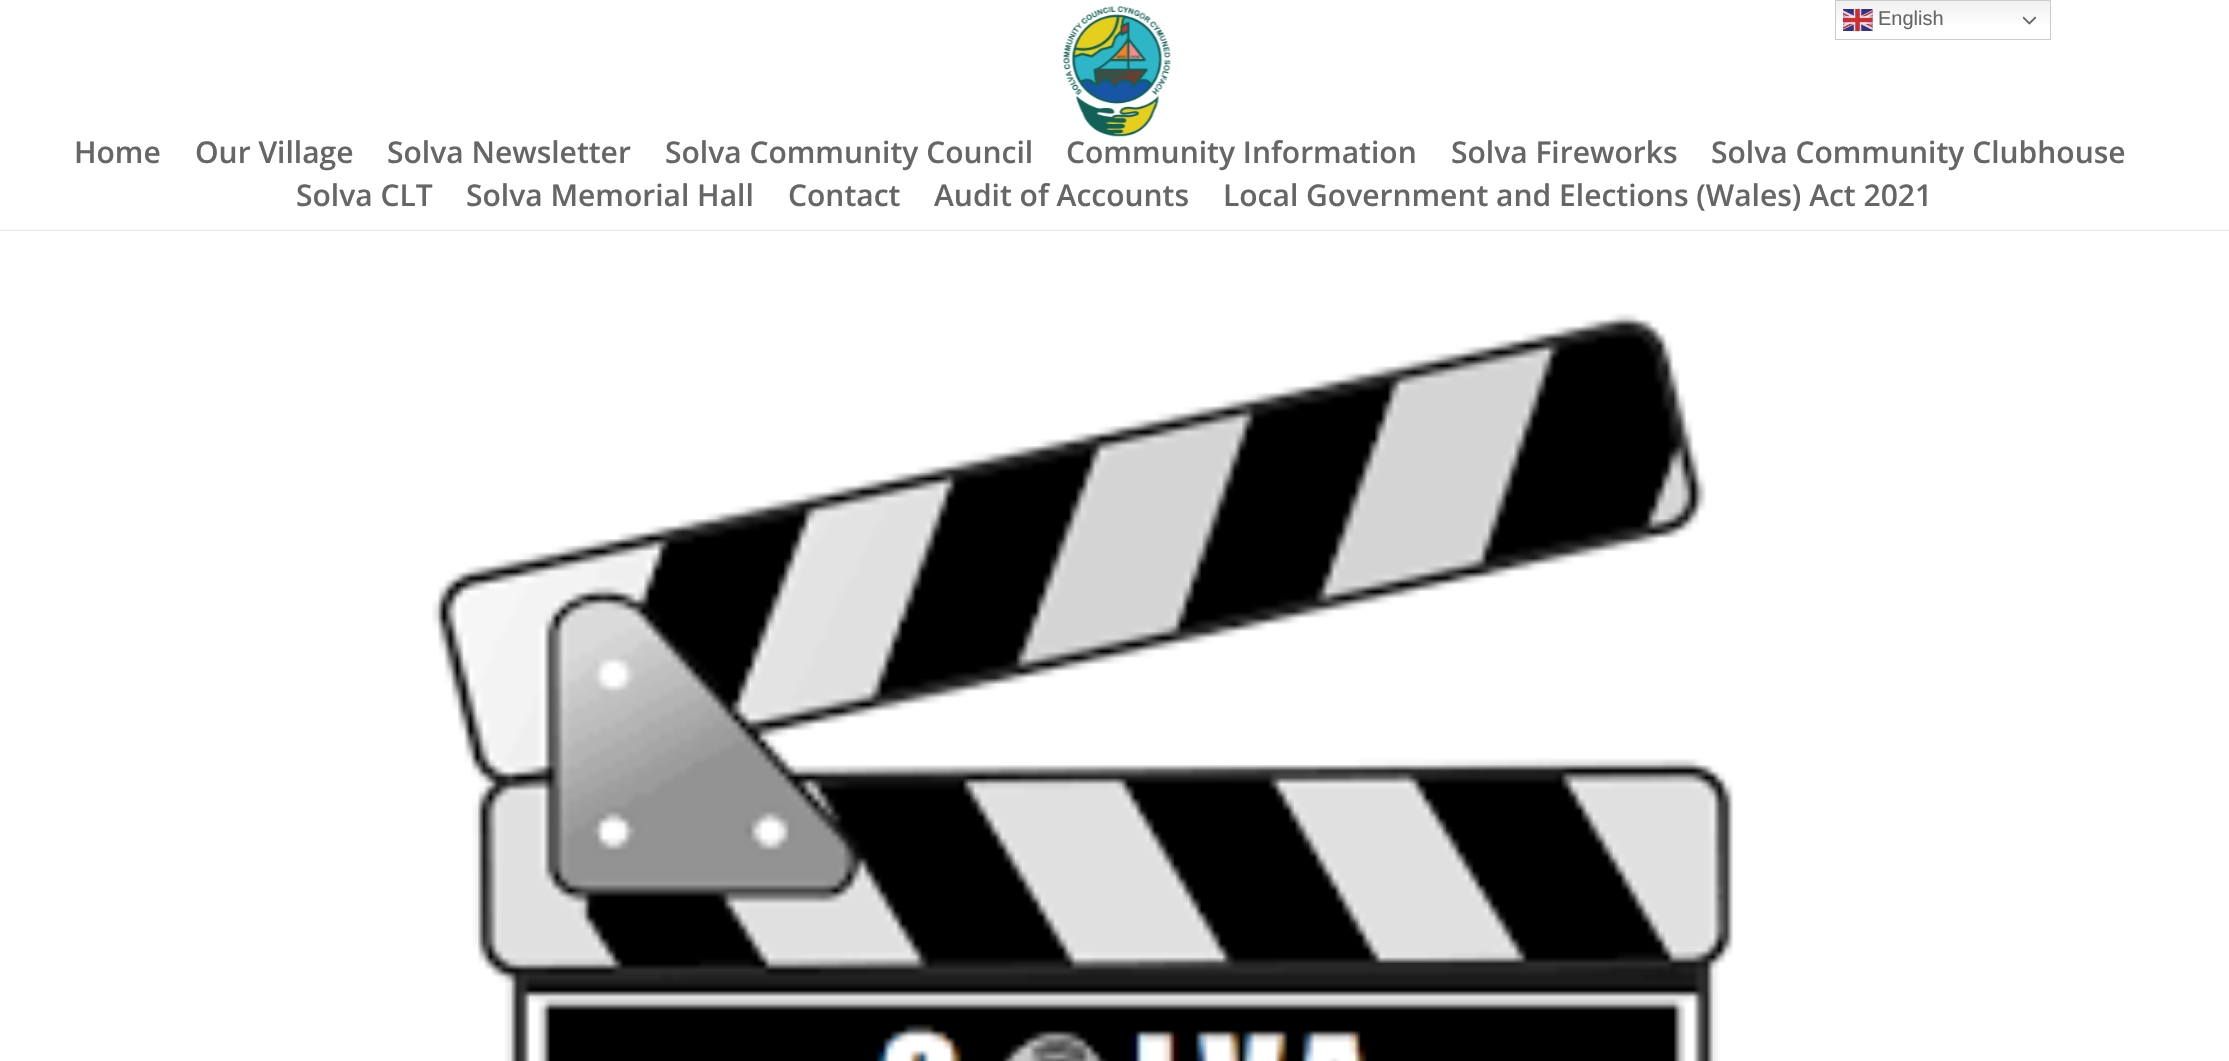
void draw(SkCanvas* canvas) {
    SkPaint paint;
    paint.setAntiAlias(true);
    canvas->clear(0xFFFFFFFF);
    {
        const SkColor colors[] = {0xFFEFEFEF, 0xFFFFFFFF};
        const float stops[] = {0, 0.7f};
        const SkPoint ends[] = {{1943, 0}, {1943, 40}};
        paint.setShader(SkGradientShader::MakeLinear(ends, colors, stops, 2, SkTileMode::kClamp));
        paint.setAlpha(255);
    }
    canvas->drawRect(SkRect::MakeXYWH(1836, 1, 214, 23), paint);
    paint.setStyle(SkPaint::kStroke_Style);
    paint.setStrokeWidth(1);
    paint.setShader(nullptr);
    paint.setColor(0xFFCCCCCC);
    canvas->drawRect(SkRect::MakeXYWH(1835.5f, 0.5f, 215, 39), paint);
    canvas->drawImageRect(SkImages::DeferredFromEncodedData(SkData::MakeFromFileName("img1.png")), SkRect::MakeXYWH(1843, 8, 30, 24), SkSamplingOptions());
    SkFont font1(fontMgr->matchFamilyStyle("Liberation Sans", SkFontStyle::Normal()), 20);
    font1.setSubpixel(true);
    paint.setStyle(SkPaint::kFill_Style);
    paint.setColor(0xFF666666);
    canvas->drawString("English", 1878, 25, font1, paint);
    canvas->drawImageRect(SkImages::DeferredFromEncodedData(SkData::MakeFromFileName("img2.png")), SkRect::MakeXYWH(2023, 16, 13, 9), SkSamplingOptions());
    paint.setColor(0xFFE6E6E6);
    canvas->drawRect(SkRect::MakeXYWH(0, 230, 2229, 1), paint);
    canvas->drawImageRect(SkImages::DeferredFromEncodedData(SkData::MakeFromFileName("img3.png")), SkRect::MakeXYWH(1063, 6, 108, 131), SkSamplingOptions());
    SkFont font2(fontMgr->matchFamilyStyle("Open Sans", SkFontStyle(600, SkFontStyle::kNormal_Width, SkFontStyle::kUpright_Slant)), 30);
    font2.setSubpixel(true);
    paint.setColor(0xFF666666);
    canvas->drawString("Home", 74, 163, font2, paint);
    canvas->drawString("Our Village", 195, 163, font2, paint);
    canvas->drawString("Solva Newsletter", 387, 163, font2, paint);
    canvas->drawString("Solva Community Council", 665, 163, font2, paint);
    canvas->drawString("Community Information", 1066, 163, font2, paint);
    canvas->drawString("Solva Fireworks", 1451, 163, font2, paint);
    canvas->drawString("Solva Community Clubhouse", 1711, 163, font2, paint);
    canvas->drawString("Solva CLT", 296, 206, font2, paint);
    canvas->drawString("Solva Memorial Hall", 466, 206, font2, paint);
    canvas->drawString("Contact", 788, 206, font2, paint);
    canvas->drawString("Audit of Accounts", 934, 206, font2, paint);
    canvas->drawString("Local Government and Elections (Wales) Act 2021", 1223, 206, font2, paint);
    canvas->drawImageRect(SkImages::DeferredFromEncodedData(SkData::MakeFromFileName("img4.png")), SkRect::MakeXYWH(432, 313, 1301, 748), SkSamplingOptions());
}
